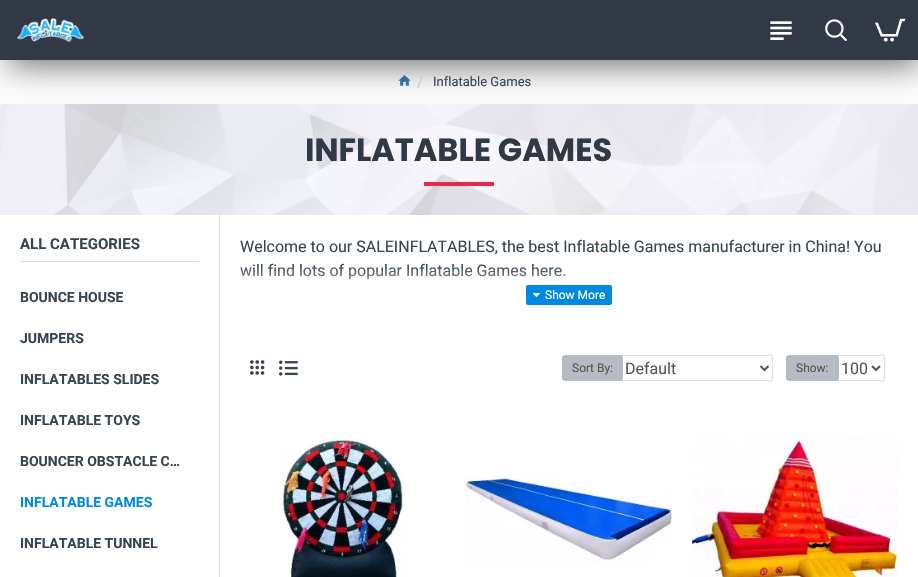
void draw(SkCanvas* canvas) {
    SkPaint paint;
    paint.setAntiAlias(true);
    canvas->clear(0xFFFFFFFF);
    paint.setColor(0xFFFAFAFA);
    canvas->drawRect(SkRect::MakeXYWH(0, 60, 918, 44), paint);
    canvas->drawImageRect(SkImages::DeferredFromEncodedData(SkData::MakeFromFileName("img5.png")), SkRect::MakeXYWH(398, 75, 13, 11), SkSamplingOptions());
    canvas->drawImageRect(SkImages::DeferredFromEncodedData(SkData::MakeFromFileName("img6.png")), SkRect::MakeXYWH(0, 104, 918, 111), SkSamplingOptions());
    paint.setColor(0x4D000000);
    paint.setMaskFilter(SkMaskFilter::MakeBlur(kNormal_SkBlurStyle, 15));
    canvas->drawRect(SkRect::MakeXYWH(10, 15, 908, 50), paint);
    paint.setMaskFilter(nullptr);
    paint.setColor(0xFF313846);
    canvas->drawRect(SkRect::MakeXYWH(0, 0, 918, 60), paint);
    canvas->save();
    canvas->clipRect(SkRect::MakeXYWH(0, 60, 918, 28));
    paint.setColor(0x4D000000);
    paint.setMaskFilter(SkMaskFilter::MakeBlur(kNormal_SkBlurStyle, 15));
    canvas->drawRect(SkRect::MakeXYWH(10, 15, 908, 50), paint);
    paint.setMaskFilter(nullptr);
    canvas->restore();
    canvas->drawImageRect(SkImages::DeferredFromEncodedData(SkData::MakeFromFileName("img1.png")), SkRect::MakeXYWH(17, 18, 67, 24), SkSamplingOptions());
    canvas->drawImageRect(SkImages::DeferredFromEncodedData(SkData::MakeFromFileName("img2.png")), SkRect::MakeXYWH(770, 21, 22, 19), SkSamplingOptions());
    canvas->drawImageRect(SkImages::DeferredFromEncodedData(SkData::MakeFromFileName("img3.png")), SkRect::MakeXYWH(825, 19, 22, 22), SkSamplingOptions());
    canvas->drawImageRect(SkImages::DeferredFromEncodedData(SkData::MakeFromFileName("img4.png")), SkRect::MakeXYWH(875, 18, 31, 24), SkSamplingOptions());
    SkFont font1(fontMgr->matchFamilyStyle("Roboto", SkFontStyle::Normal()), 16);
    font1.setSubpixel(true);
    paint.setColor(0xFFCCCCCC);
    canvas->drawString("/", 417, 87, font1, paint);
    SkFont font2(fontMgr->matchFamilyStyle("Roboto", SkFontStyle::Normal()), 13);
    font2.setSubpixel(true);
    paint.setColor(0xFF38444F);
    canvas->drawString("Inflatable Games", 433, 86, font2, paint);
    SkFont font3(fontMgr->matchFamilyStyle("Poppins", SkFontStyle::Bold()), 32);
    font3.setSubpixel(true);
    paint.setColor(0xFF313846);
    canvas->drawString("INFLATABLE GAMES", 305, 161, font3, paint);
    paint.setColor(0xFFE7284D);
    canvas->drawRect(SkRect::MakeXYWH(424, 182, 70, 4), paint);
    paint.setColor(0xFFDDDDDD);
    canvas->drawRect(SkRect::MakeXYWH(219, 215, 1, 362), paint);
    canvas->drawRect(SkRect::MakeXYWH(20, 261, 179, 1), paint);
    SkFont font4(fontMgr->matchFamilyStyle("Roboto", SkFontStyle::Bold()), 15);
    font4.setSubpixel(true);
    paint.setColor(0xFF38444F);
    canvas->drawString("ALL CATEGORIES", 20, 249, font4, paint);
    canvas->save();
    canvas->clipRect(SkRect::MakeXYWH(20, 287, 103, 21));
    SkFont font5(fontMgr->matchFamilyStyle("Roboto", SkFontStyle::Bold()), 14);
    font5.setSubpixel(true);
    canvas->drawString("BOUNCE HOUSE", 20, 302, font5, paint);
    canvas->restore();
    canvas->drawString("JUMPERS", 20, 343, font5, paint);
    canvas->drawString("INFLATABLES SLIDES", 20, 384, font5, paint);
    canvas->drawString("INFLATABLE TOYS", 20, 425, font5, paint);
    canvas->drawString("BOUNCER OBSTACLE C…", 20, 466, font5, paint);
    paint.setColor(0xFF008ADD);
    canvas->drawString("INFLATABLE GAMES", 20, 507, font5, paint);
    paint.setColor(0xFF38444F);
    canvas->drawString("INFLATABLE TUNNEL", 20, 548, font5, paint);
    canvas->drawString("Welcome to our SALEINFLATABLES, the best Inflatable Games manufacturer in China! You", 240, 252, font1, paint);
    canvas->drawString("will find lots of popular Inflatable Games here.", 240, 276, font1, paint);
    {
        const SkColor colors[] = {0x00FFFFFF, 0xFFFFFFFF};
        const float stops[] = {0, 1};
        const SkPoint ends[] = {{569, 265}, {569, 305}};
        paint.setShader(SkGradientShader::MakeLinear(ends, colors, stops, 2, SkTileMode::kClamp));
        paint.setAlpha(255);
    }
    canvas->drawRect(SkRect::MakeXYWH(240, 266, 325, 14), paint);
    paint.setShader(nullptr);
    paint.setColor(0xFF008ADD);
    canvas->drawRoundRect(SkRect::MakeXYWH(526, 285, 86, 20), 2, 2, paint);
    canvas->drawImageRect(SkImages::DeferredFromEncodedData(SkData::MakeFromFileName("img7.png")), SkRect::MakeXYWH(533, 293, 7, 4), SkSamplingOptions());
    SkFont font6(fontMgr->matchFamilyStyle("Roboto", SkFontStyle::Normal()), 12);
    font6.setSubpixel(true);
    paint.setColor(0xFFFFFFFF);
    canvas->drawString("Show More", 545, 299, font6, paint);
    canvas->drawImageRect(SkImages::DeferredFromEncodedData(SkData::MakeFromFileName("img8.png")), SkRect::MakeXYWH(250, 360, 15, 15), SkSamplingOptions());
    canvas->drawImageRect(SkImages::DeferredFromEncodedData(SkData::MakeFromFileName("img9.png")), SkRect::MakeXYWH(279, 360, 19, 16), SkSamplingOptions());
    paint.setStyle(SkPaint::kStroke_Style);
    paint.setStrokeWidth(1);
    paint.setColor(0xFFDDDDDD);
    canvas->drawRoundRect(SkRect::MakeXYWH(620.5f, 355.5f, 152, 25), 1.5f, 1.5f, paint);
    paint.setStyle(SkPaint::kFill_Style);
    paint.setColor(0xFFB6BBC6);
    canvas->drawRoundRect(SkRect::MakeXYWH(562, 355, 61, 26), 3, 3, paint);
    paint.setColor(0xFF555555);
    canvas->drawString("Sort By:", 572, 372, font6, paint);
    paint.setStyle(SkPaint::kStroke_Style);
    paint.setStrokeWidth(2);
    canvas->drawPath(SkPathBuilder().moveTo(760.5f, 366).lineTo(764.5f, 370).lineTo(768.5f, 366).detach(), paint);
    paint.setStyle(SkPaint::kFill_Style);
    canvas->drawString("Default", 625, 374, font1, paint);
    paint.setStyle(SkPaint::kStroke_Style);
    paint.setStrokeWidth(1);
    paint.setColor(0xFFDDDDDD);
    canvas->drawRoundRect(SkRect::MakeXYWH(836.5f, 355.5f, 48, 25), 1.5f, 1.5f, paint);
    paint.setStyle(SkPaint::kFill_Style);
    paint.setColor(0xFFB6BBC6);
    canvas->drawRoundRect(SkRect::MakeXYWH(786, 355, 53, 26), 3, 3, paint);
    paint.setColor(0xFF555555);
    canvas->drawString("Show:", 796, 372, font6, paint);
    paint.setStyle(SkPaint::kStroke_Style);
    paint.setStrokeWidth(2);
    canvas->drawPath(SkPathBuilder().moveTo(872, 366).lineTo(876, 370).lineTo(880, 366).detach(), paint);
    paint.setStyle(SkPaint::kFill_Style);
    canvas->drawString("100", 841, 374, font1, paint);
    canvas->drawImageRect(SkImages::DeferredFromEncodedData(SkData::MakeFromFileName("img10.png")), SkRect::MakeXYWH(279, 437, 126, 140), SkSamplingOptions());
    canvas->drawImageRect(SkImages::DeferredFromEncodedData(SkData::MakeFromFileName("img11.png")), SkRect::MakeXYWH(466, 477, 206, 89), SkSamplingOptions());
    canvas->drawImageRect(SkImages::DeferredFromEncodedData(SkData::MakeFromFileName("img12.png")), SkRect::MakeXYWH(692, 437, 206, 140), SkSamplingOptions());
}
